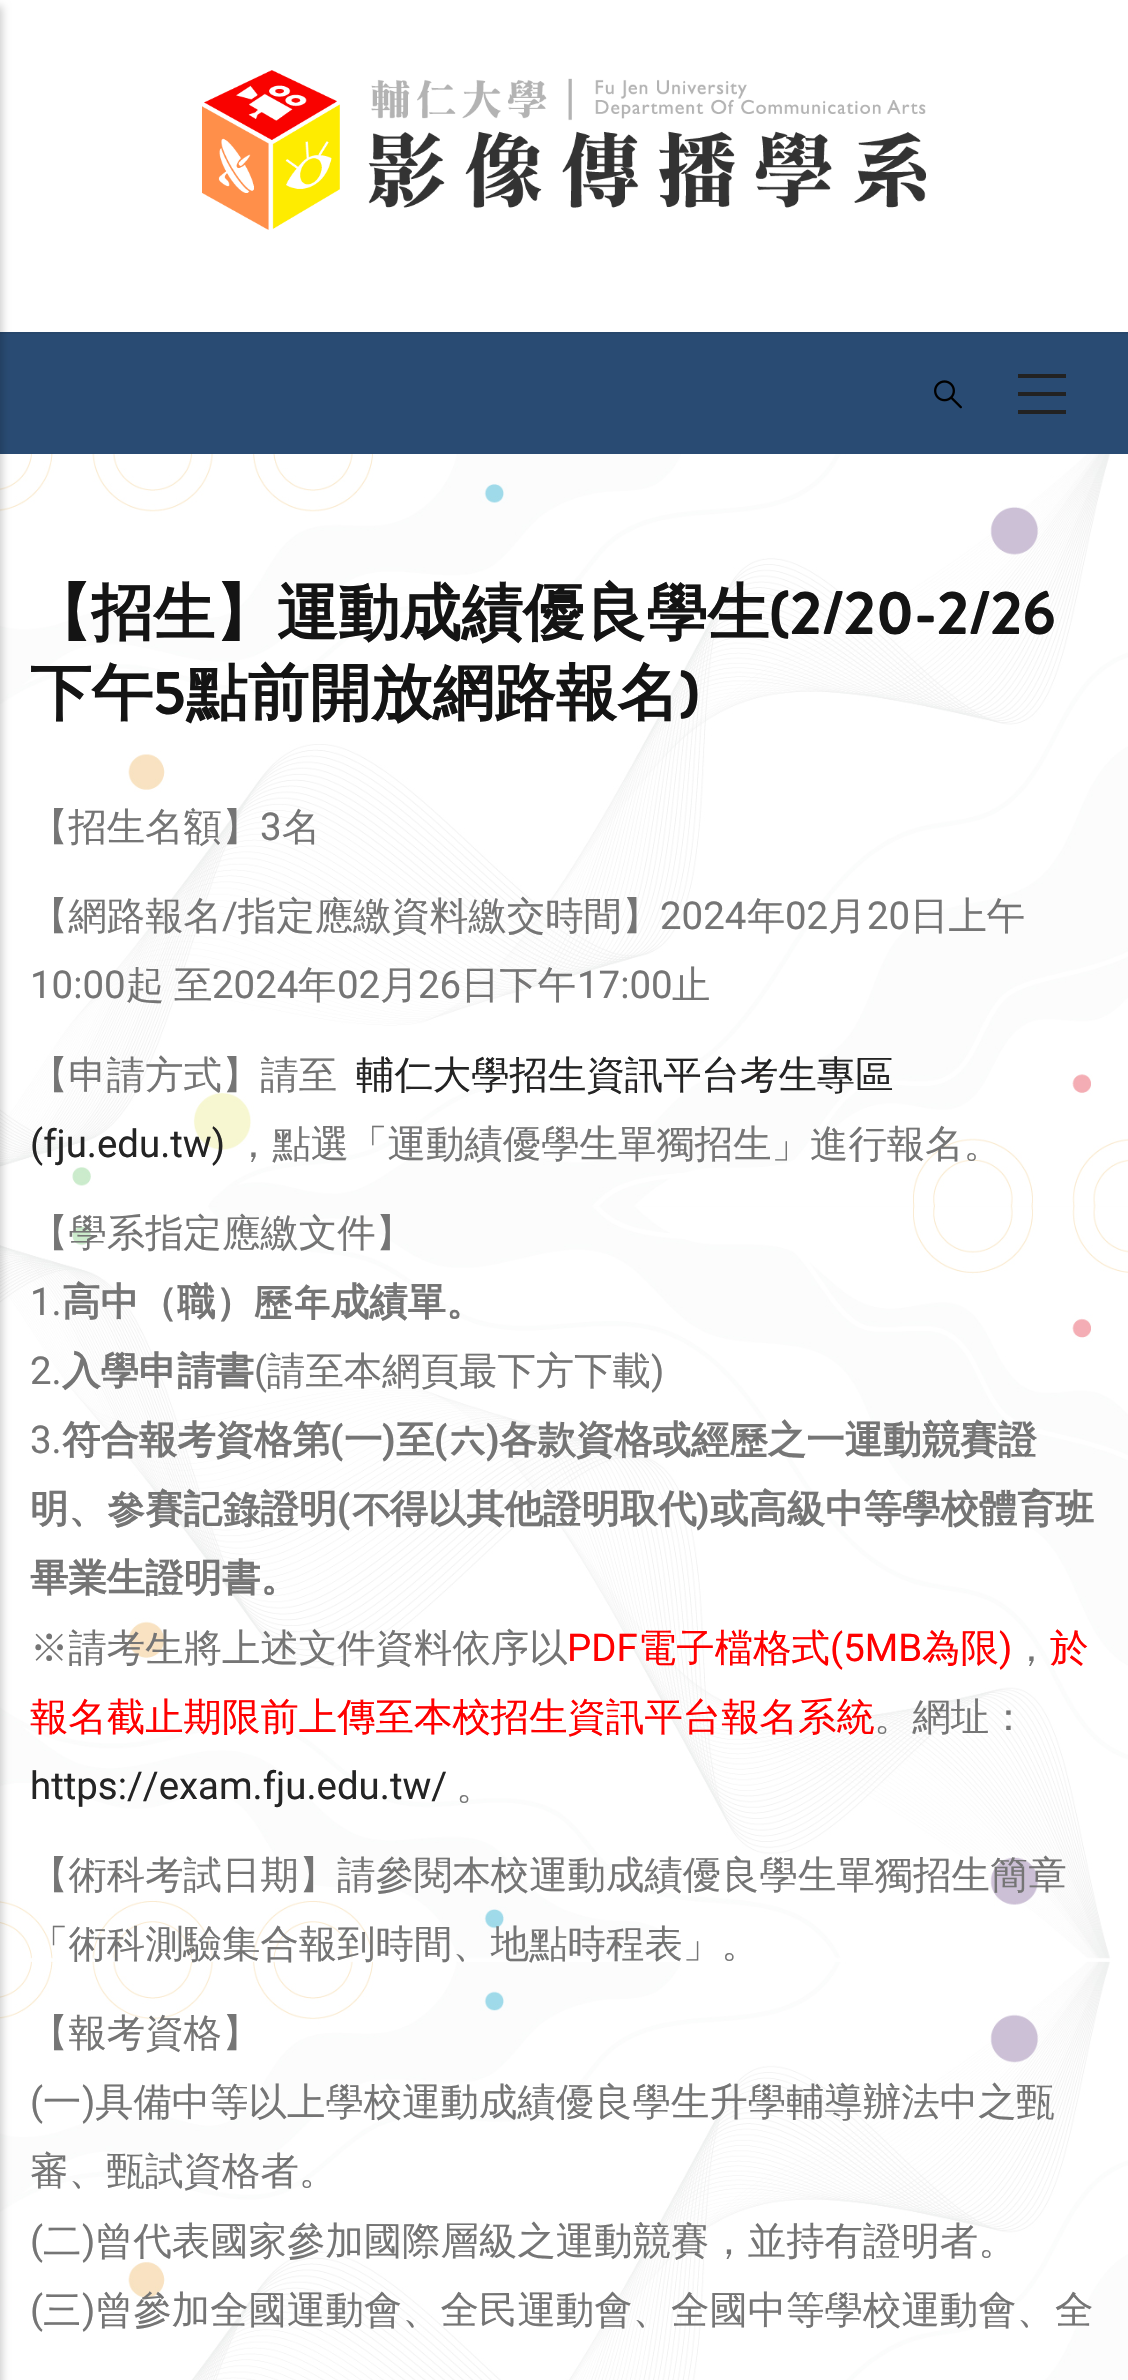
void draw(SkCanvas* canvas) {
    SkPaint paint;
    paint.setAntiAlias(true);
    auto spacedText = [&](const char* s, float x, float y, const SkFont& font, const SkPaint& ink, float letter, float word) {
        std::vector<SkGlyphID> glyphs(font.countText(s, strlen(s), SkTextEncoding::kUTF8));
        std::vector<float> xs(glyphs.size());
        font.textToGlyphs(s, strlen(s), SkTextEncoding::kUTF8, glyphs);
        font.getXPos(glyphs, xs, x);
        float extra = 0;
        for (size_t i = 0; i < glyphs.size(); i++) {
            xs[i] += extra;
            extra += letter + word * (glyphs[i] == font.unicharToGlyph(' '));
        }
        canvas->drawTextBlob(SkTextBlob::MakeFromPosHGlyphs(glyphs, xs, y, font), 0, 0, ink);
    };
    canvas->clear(0xFFFFFFFF);
    paint.setColor(0xFF294B73);
    canvas->drawRect(SkRect::MakeXYWH(0, 334, 1128, 120), paint);
    paint.setColor(0xFF27476C);
    canvas->drawRect(SkRect::MakeXYWH(0, 332, 1128, 2), paint);
    canvas->drawImageRect(SkImages::DeferredFromEncodedData(SkData::MakeFromFileName("img3.png")), SkRect::MakeXYWH(0, 454, 1128, 1926), SkSamplingOptions());
    paint.setColor(0x33000000);
    paint.setMaskFilter(SkMaskFilter::MakeBlur(kNormal_SkBlurStyle, 4));
    canvas->drawRect(SkRect::MakeXYWH(-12, 6, 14, 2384), paint);
    paint.setMaskFilter(nullptr);
    canvas->drawImageRect(SkImages::DeferredFromEncodedData(SkData::MakeFromFileName("img1.png")), SkRect::MakeXYWH(934, 380, 28, 29), SkSamplingOptions());
    paint.setColor(0xFF222222);
    canvas->drawRect(SkRect::MakeXYWH(1018, 374, 48, 4), paint);
    canvas->drawRect(SkRect::MakeXYWH(1018, 392, 48, 4), paint);
    canvas->drawRect(SkRect::MakeXYWH(1018, 410, 48, 4), paint);
    canvas->drawImageRect(SkImages::DeferredFromEncodedData(SkData::MakeFromFileName("img2.png")), SkRect::MakeXYWH(202, 70, 724, 160), SkSamplingOptions());
    SkFont font1(fontMgr->matchFamilyStyle("WenQuanYi Zen Hei", SkFontStyle::Bold()), 61.6f);
    font1.setSubpixel(true);
    paint.setColor(0xFF141414);
    canvas->drawString("【招生】運動成績優良學生", 30, 634, font1, paint);
    SkFont font2(fontMgr->matchFamilyStyle("Brandon Grotesque", SkFontStyle::Bold()), 61.6f);
    font2.setSubpixel(true);
    canvas->drawString("(2/20-2/26", 769, 634, font2, paint);
    canvas->drawString("下午", 30, 714, font1, paint);
    canvas->drawString("5", 153, 714, font2, paint);
    canvas->drawString("點前開放網路報名", 186, 714, font1, paint);
    canvas->drawString(")", 679, 714, font2, paint);
    SkFont font3(fontMgr->matchFamilyStyle("WenQuanYi Zen Hei", SkFontStyle(500, SkFontStyle::kNormal_Width, SkFontStyle::kUpright_Slant)), 38.4f);
    font3.setSubpixel(true);
    paint.setColor(0xFF757575);
    canvas->drawString("【招生名額】", 30, 840, font3, paint);
    SkFont font4(fontMgr->matchFamilyStyle("Roboto", SkFontStyle::Normal()), 38.4f);
    font4.setSubpixel(true);
    canvas->drawString("3", 260, 840, font4, paint);
    canvas->drawString("名", 282, 840, font3, paint);
    canvas->drawString("【網路報名", 30, 929, font3, paint);
    canvas->drawString("/", 222, 929, font4, paint);
    canvas->drawString("指定應繳資料繳交時間】", 238, 929, font3, paint);
    canvas->drawString("2024", 660, 929, font4, paint);
    canvas->drawString("年", 747, 929, font3, paint);
    canvas->drawString("02", 785, 929, font4, paint);
    canvas->drawString("月", 828, 929, font3, paint);
    canvas->drawString("20", 867, 929, font4, paint);
    canvas->drawString("日上午", 910, 929, font3, paint);
    canvas->drawString("10:00", 30, 998, font4, paint);
    spacedText("起 至", 126, 998, font3, paint, 0, -2);
    canvas->drawString("2024", 212, 998, font4, paint);
    canvas->drawString("年", 298, 998, font3, paint);
    canvas->drawString("02", 337, 998, font4, paint);
    canvas->drawString("月", 380, 998, font3, paint);
    canvas->drawString("26", 418, 998, font4, paint);
    canvas->drawString("日下午", 461, 998, font3, paint);
    canvas->drawString("17:00", 577, 998, font4, paint);
    canvas->drawString("止", 672, 998, font3, paint);
    canvas->drawString("【申請方式】請至", 30, 1088, font3, paint);
    paint.setColor(0xFF242424);
    canvas->drawString("輔仁大學招生資訊平台考生專區", 356, 1088, font3, paint);
    canvas->drawString("(fju.edu.tw)", 30, 1157, font4, paint);
    paint.setColor(0xFF757575);
    canvas->drawString("，點選「運動績優學生單獨招生」進行報名。", 234, 1157, font3, paint);
    canvas->drawString("【學系指定應繳文件】", 30, 1246, font3, paint);
    canvas->drawString("1.", 30, 1315, font4, paint);
    SkFont font5(fontMgr->matchFamilyStyle("WenQuanYi Zen Hei", SkFontStyle::Bold()), 38.4f);
    font5.setSubpixel(true);
    canvas->drawString("高中（職）歷年成績單。", 62, 1315, font5, paint);
    canvas->drawString("2.", 30, 1384, font4, paint);
    canvas->drawString("入學申請書", 62, 1384, font5, paint);
    canvas->drawString("(", 254, 1384, font4, paint);
    canvas->drawString("請至本網頁最下方下載", 267, 1384, font3, paint);
    canvas->drawString(")", 651, 1384, font4, paint);
    canvas->drawString("3.", 30, 1453, font4, paint);
    canvas->drawString("符合報考資格第", 62, 1453, font5, paint);
    SkFont font6(fontMgr->matchFamilyStyle("Roboto", SkFontStyle::Bold()), 38.4f);
    font6.setSubpixel(true);
    canvas->drawString("(", 330, 1453, font6, paint);
    canvas->drawString("一", 344, 1453, font5, paint);
    canvas->drawString(")", 382, 1453, font6, paint);
    canvas->drawString("至", 396, 1453, font5, paint);
    canvas->drawString("(", 434, 1453, font6, paint);
    canvas->drawString("六", 448, 1453, font5, paint);
    canvas->drawString(")", 486, 1453, font6, paint);
    canvas->drawString("各款資格或經歷之一運動競賽證", 499, 1453, font5, paint);
    canvas->drawString("明、參賽記錄證明", 30, 1522, font5, paint);
    canvas->drawString("(", 337, 1522, font6, paint);
    canvas->drawString("不得以其他證明取代", 351, 1522, font5, paint);
    canvas->drawString(")", 696, 1522, font6, paint);
    canvas->drawString("或高級中等學校體育班", 710, 1522, font5, paint);
    canvas->drawString("畢業生證明書。", 30, 1591, font5, paint);
    canvas->drawString("※請考生將上述文件資料依序以", 30, 1661, font3, paint);
    paint.setColor(0xFFFF0000);
    canvas->drawString("PDF", 567, 1661, font4, paint);
    canvas->drawString("電子檔格式", 638, 1661, font3, paint);
    canvas->drawString("(5MB", 830, 1661, font4, paint);
    canvas->drawString("為限", 922, 1661, font3, paint);
    canvas->drawString(")", 999, 1661, font4, paint);
    paint.setColor(0xFF757575);
    canvas->drawString("，", 1012, 1661, font3, paint);
    paint.setColor(0xFFFF0000);
    canvas->drawString("於", 1050, 1661, font3, paint);
    canvas->drawString("報名截止期限前上傳至本校招生資訊平台報名系統", 30, 1730, font3, paint);
    paint.setColor(0xFF757575);
    canvas->drawString("。網址：", 874, 1730, font3, paint);
    paint.setColor(0xFF242424);
    canvas->drawString("https://exam.fju.edu.tw/", 30, 1799, font4, paint);
    paint.setColor(0xFF757575);
    canvas->drawString("。", 456, 1799, font3, paint);
    canvas->drawString("【術科考試日期】請參閱本校運動成績優良學生單獨招生簡章", 30, 1888, font3, paint);
    canvas->drawString("「術科測驗集合報到時間、地點時程表」。", 30, 1957, font3, paint);
    canvas->drawString("【報考資格】", 30, 2046, font3, paint);
    canvas->drawString("(", 30, 2115, font4, paint);
    canvas->drawString("一", 43, 2115, font3, paint);
    canvas->drawString(")", 82, 2115, font4, paint);
    canvas->drawString("具備中等以上學校運動成績優良學生升學輔導辦法中之甄", 95, 2115, font3, paint);
    canvas->drawString("審、甄試資格者。", 30, 2184, font3, paint);
    canvas->drawString("(", 30, 2254, font4, paint);
    canvas->drawString("二", 43, 2254, font3, paint);
    canvas->drawString(")", 82, 2254, font4, paint);
    canvas->drawString("曾代表國家參加國際層級之運動競賽，並持有證明者。", 95, 2254, font3, paint);
    canvas->drawString("(", 30, 2323, font4, paint);
    canvas->drawString("三", 43, 2323, font3, paint);
    canvas->drawString(")", 82, 2323, font4, paint);
    canvas->drawString("曾參加全國運動會、全民運動會、全國中等學校運動會、全", 95, 2323, font3, paint);
}
